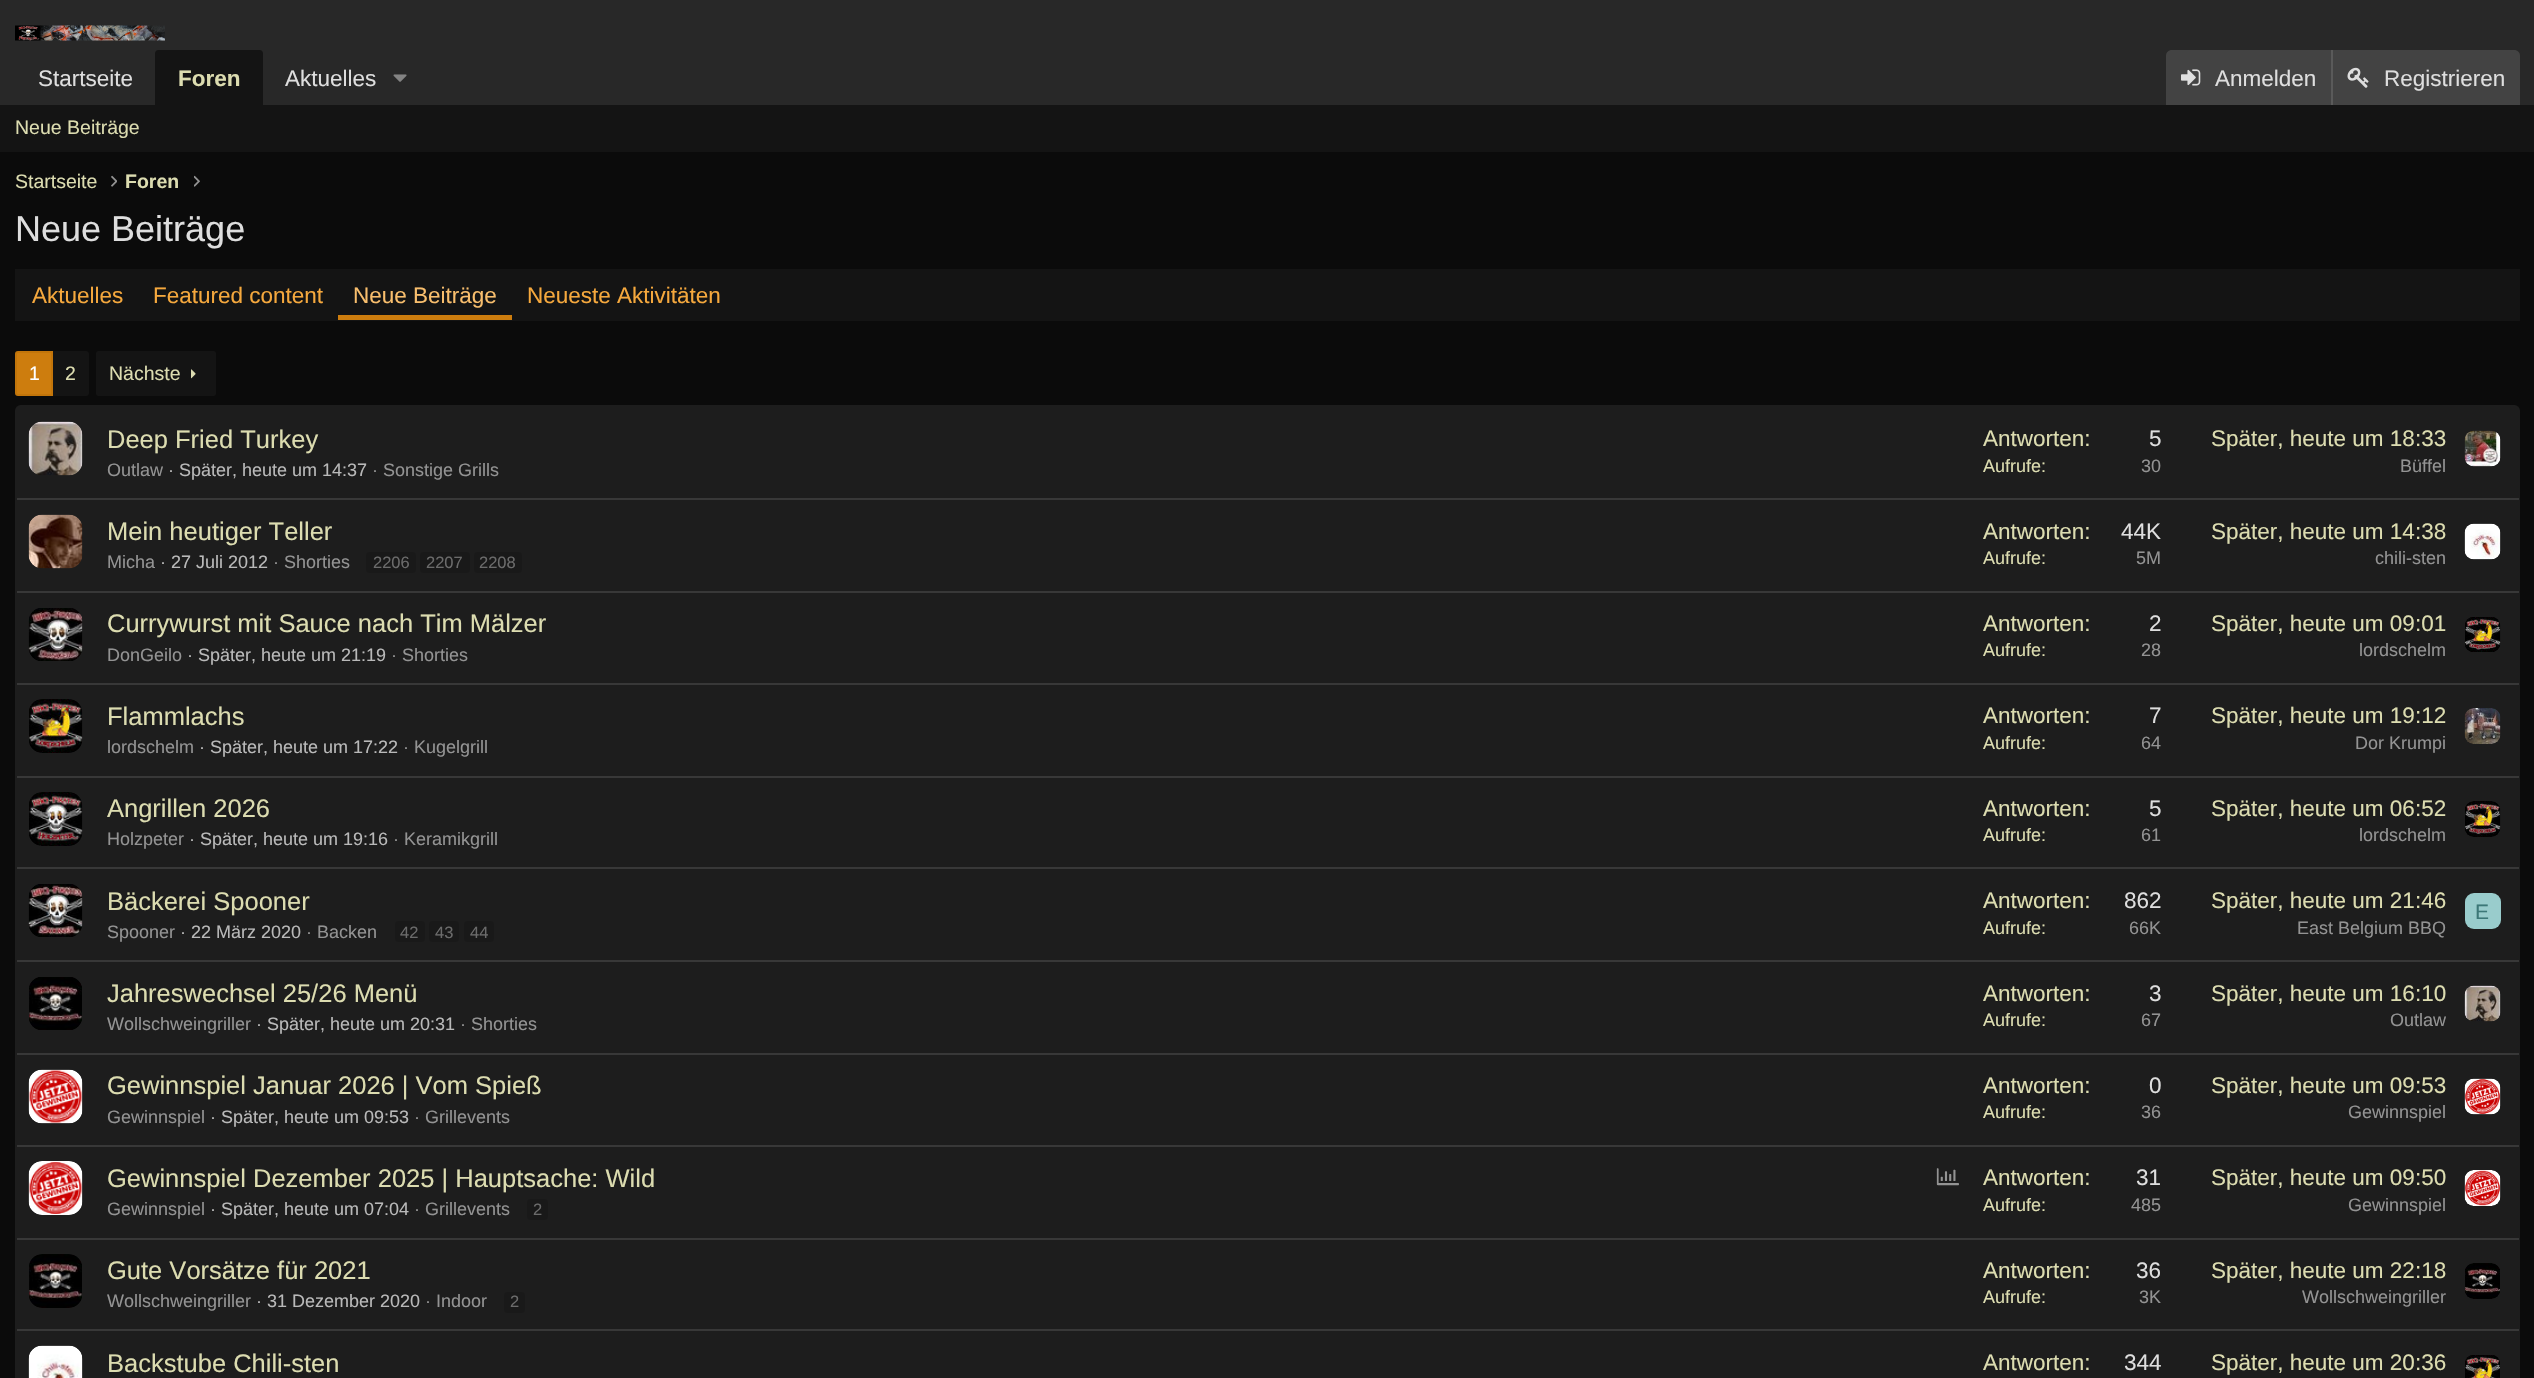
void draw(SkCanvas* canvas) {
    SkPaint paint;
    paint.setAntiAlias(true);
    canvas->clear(0xFF0B0B0B);
    paint.setColor(0xFF282828);
    canvas->drawRect(SkRect::MakeXYWH(0, 0, 2534, 105), paint);
    canvas->drawImageRect(SkImages::DeferredFromEncodedData(SkData::MakeFromFileName("img1.png")), SkRect::MakeXYWH(15, 25, 150, 16), SkSamplingOptions());
    SkFont font1(fontMgr->matchFamilyStyle("Liberation Sans", SkFontStyle::Normal()), 22.5f);
    font1.setSubpixel(true);
    paint.setColor(0xFFDEDEDE);
    canvas->drawString("Startseite", 38, 86, font1, paint);
    paint.setColor(0xFF141414);
    canvas->drawPath(SkPathBuilder().moveTo(158, 50).lineTo(260, 50).cubicTo(261.5f, 50, 263, 51.5f, 263, 53).lineTo(263, 105).lineTo(155, 105).lineTo(155, 53).cubicTo(155, 51.5f, 156.5f, 50, 158, 50).close().detach(), paint);
    SkFont font2(fontMgr->matchFamilyStyle("Liberation Sans", SkFontStyle::Bold()), 22.5f);
    font2.setSubpixel(true);
    paint.setColor(0xFFDCDCB0);
    canvas->drawString("Foren", 178, 86, font2, paint);
    paint.setColor(0xFFDEDEDE);
    canvas->drawString("Aktuelles", 285, 86, font1, paint);
    canvas->drawImageRect(SkImages::DeferredFromEncodedData(SkData::MakeFromFileName("img2.png")), SkRect::MakeXYWH(393, 74, 14, 8), SkSamplingOptions());
    paint.setColor(0xFF434343);
    canvas->drawPath(SkPathBuilder().moveTo(2172, 50).lineTo(2514, 50).cubicTo(2517.5f, 50, 2520, 52.5f, 2520, 56).lineTo(2520, 105).lineTo(2166, 105).lineTo(2166, 56).cubicTo(2166, 52.5f, 2168.5f, 50, 2172, 50).close().detach(), paint);
    canvas->drawImageRect(SkImages::DeferredFromEncodedData(SkData::MakeFromFileName("img3.png")), SkRect::MakeXYWH(2181, 69, 20, 17), SkSamplingOptions());
    paint.setColor(0xFFDEDEDE);
    canvas->drawString("Anmelden", 2215, 86, font1, paint);
    paint.setColor(0xFF5A5A5A);
    canvas->drawRect(SkRect::MakeXYWH(2331, 50, 2, 55), paint);
    canvas->drawImageRect(SkImages::DeferredFromEncodedData(SkData::MakeFromFileName("img4.png")), SkRect::MakeXYWH(2347, 67, 22, 21), SkSamplingOptions());
    paint.setColor(0xFFDEDEDE);
    canvas->drawString("Registrieren", 2384, 86, font1, paint);
    paint.setColor(0xFF141414);
    canvas->drawRect(SkRect::MakeXYWH(0, 105, 2534, 47), paint);
    SkFont font3(fontMgr->matchFamilyStyle("Liberation Sans", SkFontStyle::Normal()), 19.5f);
    font3.setSubpixel(true);
    paint.setColor(0xFFDCDCB0);
    canvas->drawString("Neue Beiträge", 15, 134, font3, paint);
    canvas->drawString("Startseite", 15, 188, font3, paint);
    canvas->drawImageRect(SkImages::DeferredFromEncodedData(SkData::MakeFromFileName("img5.png")), SkRect::MakeXYWH(111, 175, 6, 12), SkSamplingOptions());
    SkFont font4(fontMgr->matchFamilyStyle("Liberation Sans", SkFontStyle::Bold()), 19.5f);
    font4.setSubpixel(true);
    canvas->drawString("Foren", 125, 188, font4, paint);
    canvas->drawImageRect(SkImages::DeferredFromEncodedData(SkData::MakeFromFileName("img6.png")), SkRect::MakeXYWH(194, 175, 6, 12), SkSamplingOptions());
    SkFont font5(fontMgr->matchFamilyStyle("Liberation Sans", SkFontStyle::Normal()), 36);
    font5.setSubpixel(true);
    paint.setColor(0xFFDEDEDE);
    canvas->drawString("Neue Beiträge", 15, 241, font5, paint);
    paint.setColor(0xFF141414);
    canvas->drawRect(SkRect::MakeXYWH(15, 269, 2505, 52), paint);
    paint.setColor(0xFFF5A83D);
    canvas->drawString("Aktuelles", 32, 303, font1, paint);
    canvas->drawString("Featured content", 153, 303, font1, paint);
    paint.setColor(0xFFCD7D0E);
    canvas->drawRect(SkRect::MakeXYWH(338, 315, 174, 5), paint);
    paint.setColor(0xFFF8BE6D);
    canvas->drawString("Neue Beiträge", 353, 303, font1, paint);
    paint.setColor(0xFFF5A83D);
    canvas->drawString("Neueste Aktivitäten", 527, 303, font1, paint);
    paint.setColor(0xFFCD7D0E);
    canvas->drawPath(SkPathBuilder().moveTo(18, 352).lineTo(52, 352).lineTo(52, 395).lineTo(18, 395).cubicTo(17, 395, 16, 394, 16, 393).lineTo(16, 354).cubicTo(16, 353, 17, 352, 18, 352).close().detach(), paint);
    paint.setStyle(SkPaint::kStroke_Style);
    paint.setStrokeWidth(2);
    paint.setColor(0xFFC2750A);
    canvas->drawPath(SkPathBuilder().moveTo(18, 352).lineTo(52, 352).lineTo(52, 395).lineTo(18, 395).cubicTo(17, 395, 16, 394, 16, 393).lineTo(16, 354).cubicTo(16, 353, 17, 352, 18, 352).close().detach(), paint);
    paint.setStyle(SkPaint::kFill_Style);
    paint.setColor(0xFFFFFFFF);
    canvas->drawString("1", 29, 380, font3, paint);
    paint.setColor(0xFF141414);
    canvas->drawPath(SkPathBuilder().moveTo(53, 351).lineTo(86, 351).cubicTo(87.5f, 351, 89, 352.5f, 89, 354).lineTo(89, 393).cubicTo(89, 394.5f, 87.5f, 396, 86, 396).lineTo(53, 396).close().detach(), paint);
    paint.setColor(0xFFDCDCB0);
    canvas->drawString("2", 65, 380, font3, paint);
    paint.setColor(0xFF141414);
    canvas->drawRoundRect(SkRect::MakeXYWH(96, 351, 120, 45), 3, 3, paint);
    paint.setColor(0xFFDCDCB0);
    canvas->drawString("Nächste", 109, 380, font3, paint);
    canvas->drawImageRect(SkImages::DeferredFromEncodedData(SkData::MakeFromFileName("img7.png")), SkRect::MakeXYWH(191, 369, 5, 10), SkSamplingOptions());
    paint.setColor(0xFF1D1D1D);
    canvas->drawRoundRect(SkRect::MakeXYWH(15, 405, 2505, 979), 6, 6, paint);
    canvas->drawImageRect(SkImages::DeferredFromEncodedData(SkData::MakeFromFileName("img8.png")), SkRect::MakeXYWH(28, 421, 55, 55), SkSamplingOptions());
    SkFont font6(fontMgr->matchFamilyStyle("Liberation Sans", SkFontStyle::Normal()), 25.5f);
    font6.setSubpixel(true);
    paint.setColor(0xFFDCDCB0);
    canvas->drawString("Deep Fried Turkey", 107, 448, font6, paint);
    SkFont font7(fontMgr->matchFamilyStyle("Liberation Sans", SkFontStyle::Normal()), 18);
    font7.setSubpixel(true);
    paint.setColor(0xFF939393);
    canvas->drawString("Outlaw", 107, 476, font7, paint);
    paint.setColor(0xFFB9B9B9);
    canvas->drawString("· Später, heute um 14:37", 168, 476, font7, paint);
    paint.setColor(0xFF939393);
    canvas->drawString("· Sonstige Grills", 372, 476, font7, paint);
    paint.setColor(0xFFDCDCB0);
    canvas->drawString("Antworten:", 1983, 446, font1, paint);
    paint.setColor(0xFFDEDEDE);
    canvas->drawString("5", 2149, 446, font1, paint);
    paint.setColor(0xFFDCDCB0);
    canvas->drawString("Aufrufe:", 1983, 472, font7, paint);
    paint.setColor(0xFF939393);
    canvas->drawString("30", 2141, 472, font7, paint);
    paint.setColor(0xFFDCDCB0);
    canvas->drawString("Später, heute um 18:33", 2211, 446, font1, paint);
    paint.setColor(0xFF939393);
    canvas->drawString("Büffel", 2400, 472, font7, paint);
    canvas->drawImageRect(SkImages::DeferredFromEncodedData(SkData::MakeFromFileName("img9.png")), SkRect::MakeXYWH(2464, 430, 37, 37), SkSamplingOptions());
    paint.setColor(0xFF383838);
    canvas->drawRect(SkRect::MakeXYWH(17, 498, 2502, 2), paint);
    canvas->drawImageRect(SkImages::DeferredFromEncodedData(SkData::MakeFromFileName("img10.png")), SkRect::MakeXYWH(28, 514, 55, 55), SkSamplingOptions());
    paint.setColor(0xFFDCDCB0);
    canvas->drawString("Mein heutiger Teller", 107, 540, font6, paint);
    paint.setColor(0xFF939393);
    canvas->drawString("Micha", 107, 568, font7, paint);
    paint.setColor(0xFFB9B9B9);
    canvas->drawString("· 27 Juli 2012", 160, 568, font7, paint);
    paint.setColor(0xFF939393);
    canvas->drawString("· Shorties", 273, 568, font7, paint);
    paint.setColor(0xFF191919);
    canvas->drawRoundRect(SkRect::MakeXYWH(366, 552, 50, 21), 3, 3, paint);
    SkFont font8(fontMgr->matchFamilyStyle("Liberation Sans", SkFontStyle::Normal()), 16.5f);
    font8.setSubpixel(true);
    paint.setColor(0xFF6B6B6B);
    canvas->drawString("2206", 373, 568, font8, paint);
    paint.setColor(0xFF191919);
    canvas->drawRoundRect(SkRect::MakeXYWH(420, 552, 50, 21), 3, 3, paint);
    paint.setColor(0xFF6B6B6B);
    canvas->drawString("2207", 426, 568, font8, paint);
    paint.setColor(0xFF191919);
    canvas->drawRoundRect(SkRect::MakeXYWH(474, 552, 48, 21), 3, 3, paint);
    paint.setColor(0xFF6B6B6B);
    canvas->drawString("2208", 479, 568, font8, paint);
    paint.setColor(0xFFDCDCB0);
    canvas->drawString("Antworten:", 1983, 539, font1, paint);
    paint.setColor(0xFFDEDEDE);
    canvas->drawString("44K", 2121, 539, font1, paint);
    paint.setColor(0xFFDCDCB0);
    canvas->drawString("Aufrufe:", 1983, 564, font7, paint);
    paint.setColor(0xFF939393);
    canvas->drawString("5M", 2136, 564, font7, paint);
    paint.setColor(0xFFDCDCB0);
    canvas->drawString("Später, heute um 14:38", 2211, 539, font1, paint);
    paint.setColor(0xFF939393);
    canvas->drawString("chili-sten", 2375, 564, font7, paint);
    canvas->drawImageRect(SkImages::DeferredFromEncodedData(SkData::MakeFromFileName("img11.png")), SkRect::MakeXYWH(2464, 523, 37, 37), SkSamplingOptions());
    paint.setColor(0xFF383838);
    canvas->drawRect(SkRect::MakeXYWH(17, 591, 2502, 2), paint);
    canvas->drawImageRect(SkImages::DeferredFromEncodedData(SkData::MakeFromFileName("img12.png")), SkRect::MakeXYWH(28, 608, 55, 53), SkSamplingOptions());
    paint.setColor(0xFFDCDCB0);
    canvas->drawString("Currywurst mit Sauce nach Tim Mälzer", 107, 632, font6, paint);
    paint.setColor(0xFF939393);
    canvas->drawString("DonGeilo", 107, 661, font7, paint);
    paint.setColor(0xFFB9B9B9);
    canvas->drawString("· Später, heute um 21:19", 187, 661, font7, paint);
    paint.setColor(0xFF939393);
    canvas->drawString("· Shorties", 391, 661, font7, paint);
    paint.setColor(0xFFDCDCB0);
    canvas->drawString("Antworten:", 1983, 631, font1, paint);
    paint.setColor(0xFFDEDEDE);
    canvas->drawString("2", 2149, 631, font1, paint);
    paint.setColor(0xFFDCDCB0);
    canvas->drawString("Aufrufe:", 1983, 656, font7, paint);
    paint.setColor(0xFF939393);
    canvas->drawString("28", 2141, 656, font7, paint);
    paint.setColor(0xFFDCDCB0);
    canvas->drawString("Später, heute um 09:01", 2211, 631, font1, paint);
    paint.setColor(0xFF939393);
    canvas->drawString("lordschelm", 2359, 656, font7, paint);
    canvas->drawImageRect(SkImages::DeferredFromEncodedData(SkData::MakeFromFileName("img13.png")), SkRect::MakeXYWH(2465, 617, 36, 35), SkSamplingOptions());
    paint.setColor(0xFF383838);
    canvas->drawRect(SkRect::MakeXYWH(17, 683, 2502, 2), paint);
    canvas->drawImageRect(SkImages::DeferredFromEncodedData(SkData::MakeFromFileName("img14.png")), SkRect::MakeXYWH(29, 699, 54, 54), SkSamplingOptions());
    paint.setColor(0xFFDCDCB0);
    canvas->drawString("Flammlachs", 107, 725, font6, paint);
    paint.setColor(0xFF939393);
    canvas->drawString("lordschelm", 107, 753, font7, paint);
    paint.setColor(0xFFB9B9B9);
    canvas->drawString("· Später, heute um 17:22", 199, 753, font7, paint);
    paint.setColor(0xFF939393);
    canvas->drawString("· Kugelgrill", 403, 753, font7, paint);
    paint.setColor(0xFFDCDCB0);
    canvas->drawString("Antworten:", 1983, 723, font1, paint);
    paint.setColor(0xFFDEDEDE);
    canvas->drawString("7", 2149, 723, font1, paint);
    paint.setColor(0xFFDCDCB0);
    canvas->drawString("Aufrufe:", 1983, 749, font7, paint);
    paint.setColor(0xFF939393);
    canvas->drawString("64", 2141, 749, font7, paint);
    paint.setColor(0xFFDCDCB0);
    canvas->drawString("Später, heute um 19:12", 2211, 723, font1, paint);
    paint.setColor(0xFF939393);
    canvas->drawString("Dor Krumpi", 2355, 749, font7, paint);
    canvas->drawImageRect(SkImages::DeferredFromEncodedData(SkData::MakeFromFileName("img15.png")), SkRect::MakeXYWH(2464, 708, 37, 36), SkSamplingOptions());
    paint.setColor(0xFF383838);
    canvas->drawRect(SkRect::MakeXYWH(17, 776, 2502, 2), paint);
    canvas->drawImageRect(SkImages::DeferredFromEncodedData(SkData::MakeFromFileName("img16.png")), SkRect::MakeXYWH(29, 792, 54, 54), SkSamplingOptions());
    paint.setColor(0xFFDCDCB0);
    canvas->drawString("Angrillen 2026", 107, 817, font6, paint);
    paint.setColor(0xFF939393);
    canvas->drawString("Holzpeter", 107, 845, font7, paint);
    paint.setColor(0xFFB9B9B9);
    canvas->drawString("· Später, heute um 19:16", 189, 845, font7, paint);
    paint.setColor(0xFF939393);
    canvas->drawString("· Keramikgrill", 393, 845, font7, paint);
    paint.setColor(0xFFDCDCB0);
    canvas->drawString("Antworten:", 1983, 816, font1, paint);
    paint.setColor(0xFFDEDEDE);
    canvas->drawString("5", 2149, 816, font1, paint);
    paint.setColor(0xFFDCDCB0);
    canvas->drawString("Aufrufe:", 1983, 841, font7, paint);
    paint.setColor(0xFF939393);
    canvas->drawString("61", 2141, 841, font7, paint);
    paint.setColor(0xFFDCDCB0);
    canvas->drawString("Später, heute um 06:52", 2211, 816, font1, paint);
    paint.setColor(0xFF939393);
    canvas->drawString("lordschelm", 2359, 841, font7, paint);
    canvas->drawImageRect(SkImages::DeferredFromEncodedData(SkData::MakeFromFileName("img17.png")), SkRect::MakeXYWH(2465, 801, 36, 36), SkSamplingOptions());
    paint.setColor(0xFF383838);
    canvas->drawRect(SkRect::MakeXYWH(17, 867, 2502, 2), paint);
    canvas->drawImageRect(SkImages::DeferredFromEncodedData(SkData::MakeFromFileName("img18.png")), SkRect::MakeXYWH(28, 884, 55, 53), SkSamplingOptions());
    paint.setColor(0xFFDCDCB0);
    canvas->drawString("Bäckerei Spooner", 107, 910, font6, paint);
    paint.setColor(0xFF939393);
    canvas->drawString("Spooner", 107, 938, font7, paint);
    paint.setColor(0xFFB9B9B9);
    canvas->drawString("· 22 März 2020", 180, 938, font7, paint);
    paint.setColor(0xFF939393);
    canvas->drawString("· Backen", 306, 938, font7, paint);
    paint.setColor(0xFF191919);
    canvas->drawRoundRect(SkRect::MakeXYWH(395, 921, 30, 21), 3, 3, paint);
    paint.setColor(0xFF6B6B6B);
    canvas->drawString("42", 400, 938, font8, paint);
    paint.setColor(0xFF191919);
    canvas->drawRoundRect(SkRect::MakeXYWH(429, 921, 30, 21), 3, 3, paint);
    paint.setColor(0xFF6B6B6B);
    canvas->drawString("43", 435, 938, font8, paint);
    paint.setColor(0xFF191919);
    canvas->drawRoundRect(SkRect::MakeXYWH(464, 921, 30, 21), 3, 3, paint);
    paint.setColor(0xFF6B6B6B);
    canvas->drawString("44", 470, 938, font8, paint);
    paint.setColor(0xFFDCDCB0);
    canvas->drawString("Antworten:", 1983, 908, font1, paint);
    paint.setColor(0xFFDEDEDE);
    canvas->drawString("862", 2124, 908, font1, paint);
    paint.setColor(0xFFDCDCB0);
    canvas->drawString("Aufrufe:", 1983, 934, font7, paint);
    paint.setColor(0xFF939393);
    canvas->drawString("66K", 2129, 934, font7, paint);
    paint.setColor(0xFFDCDCB0);
    canvas->drawString("Später, heute um 21:46", 2211, 908, font1, paint);
    paint.setColor(0xFF939393);
    canvas->drawString("East Belgium BBQ", 2297, 934, font7, paint);
    paint.setColor(0xFF99CCCC);
    canvas->drawRoundRect(SkRect::MakeXYWH(2465, 893, 36, 36), 9, 9, paint);
    SkFont font9(fontMgr->matchFamilyStyle("Liberation Sans", SkFontStyle::Normal()), 21);
    font9.setSubpixel(true);
    paint.setColor(0xFF3C7777);
    canvas->drawString("E", 2475, 919, font9, paint);
    paint.setColor(0xFF383838);
    canvas->drawRect(SkRect::MakeXYWH(17, 960, 2502, 2), paint);
    canvas->drawImageRect(SkImages::DeferredFromEncodedData(SkData::MakeFromFileName("img19.png")), SkRect::MakeXYWH(29, 977, 53, 53), SkSamplingOptions());
    paint.setColor(0xFFDCDCB0);
    canvas->drawString("Jahreswechsel 25/26 Menü", 107, 1002, font6, paint);
    paint.setColor(0xFF939393);
    canvas->drawString("Wollschweingriller", 107, 1030, font7, paint);
    paint.setColor(0xFFB9B9B9);
    canvas->drawString("· Später, heute um 20:31", 256, 1030, font7, paint);
    paint.setColor(0xFF939393);
    canvas->drawString("· Shorties", 460, 1030, font7, paint);
    paint.setColor(0xFFDCDCB0);
    canvas->drawString("Antworten:", 1983, 1001, font1, paint);
    paint.setColor(0xFFDEDEDE);
    canvas->drawString("3", 2149, 1001, font1, paint);
    paint.setColor(0xFFDCDCB0);
    canvas->drawString("Aufrufe:", 1983, 1026, font7, paint);
    paint.setColor(0xFF939393);
    canvas->drawString("67", 2141, 1026, font7, paint);
    paint.setColor(0xFFDCDCB0);
    canvas->drawString("Später, heute um 16:10", 2211, 1001, font1, paint);
    paint.setColor(0xFF939393);
    canvas->drawString("Outlaw", 2390, 1026, font7, paint);
    canvas->drawImageRect(SkImages::DeferredFromEncodedData(SkData::MakeFromFileName("img20.png")), SkRect::MakeXYWH(2464, 985, 37, 37), SkSamplingOptions());
    paint.setColor(0xFF383838);
    canvas->drawRect(SkRect::MakeXYWH(17, 1053, 2502, 2), paint);
    canvas->drawImageRect(SkImages::DeferredFromEncodedData(SkData::MakeFromFileName("img21.png")), SkRect::MakeXYWH(28, 1069, 55, 55), SkSamplingOptions());
    paint.setColor(0xFFDCDCB0);
    canvas->drawString("Gewinnspiel Januar 2026 | Vom Spieß", 107, 1094, font6, paint);
    paint.setColor(0xFF939393);
    canvas->drawString("Gewinnspiel", 107, 1123, font7, paint);
    paint.setColor(0xFFB9B9B9);
    canvas->drawString("· Später, heute um 09:53", 210, 1123, font7, paint);
    paint.setColor(0xFF939393);
    canvas->drawString("· Grillevents", 414, 1123, font7, paint);
    paint.setColor(0xFFDCDCB0);
    canvas->drawString("Antworten:", 1983, 1093, font1, paint);
    paint.setColor(0xFFDEDEDE);
    canvas->drawString("0", 2149, 1093, font1, paint);
    paint.setColor(0xFFDCDCB0);
    canvas->drawString("Aufrufe:", 1983, 1118, font7, paint);
    paint.setColor(0xFF939393);
    canvas->drawString("36", 2141, 1118, font7, paint);
    paint.setColor(0xFFDCDCB0);
    canvas->drawString("Später, heute um 09:53", 2211, 1093, font1, paint);
    paint.setColor(0xFF939393);
    canvas->drawString("Gewinnspiel", 2348, 1118, font7, paint);
    canvas->drawImageRect(SkImages::DeferredFromEncodedData(SkData::MakeFromFileName("img22.png")), SkRect::MakeXYWH(2464, 1078, 37, 37), SkSamplingOptions());
    paint.setColor(0xFF383838);
    canvas->drawRect(SkRect::MakeXYWH(17, 1145, 2502, 2), paint);
    canvas->drawImageRect(SkImages::DeferredFromEncodedData(SkData::MakeFromFileName("img23.png")), SkRect::MakeXYWH(28, 1161, 55, 54), SkSamplingOptions());
    paint.setColor(0xFFDCDCB0);
    canvas->drawString("Gewinnspiel Dezember 2025 | Hauptsache: Wild", 107, 1187, font6, paint);
    canvas->drawImageRect(SkImages::DeferredFromEncodedData(SkData::MakeFromFileName("img24.png")), SkRect::MakeXYWH(1936, 1168, 23, 18), SkSamplingOptions());
    paint.setColor(0xFF939393);
    canvas->drawString("Gewinnspiel", 107, 1215, font7, paint);
    paint.setColor(0xFFB9B9B9);
    canvas->drawString("· Später, heute um 07:04", 210, 1215, font7, paint);
    paint.setColor(0xFF939393);
    canvas->drawString("· Grillevents", 414, 1215, font7, paint);
    paint.setColor(0xFF191919);
    canvas->drawRoundRect(SkRect::MakeXYWH(527, 1199, 21, 21), 3, 3, paint);
    paint.setColor(0xFF6B6B6B);
    canvas->drawString("2", 533, 1215, font8, paint);
    paint.setColor(0xFFDCDCB0);
    canvas->drawString("Antworten:", 1983, 1185, font1, paint);
    paint.setColor(0xFFDEDEDE);
    canvas->drawString("31", 2136, 1185, font1, paint);
    paint.setColor(0xFFDCDCB0);
    canvas->drawString("Aufrufe:", 1983, 1211, font7, paint);
    paint.setColor(0xFF939393);
    canvas->drawString("485", 2131, 1211, font7, paint);
    paint.setColor(0xFFDCDCB0);
    canvas->drawString("Später, heute um 09:50", 2211, 1185, font1, paint);
    paint.setColor(0xFF939393);
    canvas->drawString("Gewinnspiel", 2348, 1211, font7, paint);
    canvas->drawImageRect(SkImages::DeferredFromEncodedData(SkData::MakeFromFileName("img25.png")), SkRect::MakeXYWH(2464, 1170, 37, 36), SkSamplingOptions());
    paint.setColor(0xFF383838);
    canvas->drawRect(SkRect::MakeXYWH(17, 1238, 2502, 2), paint);
    canvas->drawImageRect(SkImages::DeferredFromEncodedData(SkData::MakeFromFileName("img26.png")), SkRect::MakeXYWH(29, 1254, 53, 54), SkSamplingOptions());
    paint.setColor(0xFFDCDCB0);
    canvas->drawString("Gute Vorsätze für 2021", 107, 1279, font6, paint);
    paint.setColor(0xFF939393);
    canvas->drawString("Wollschweingriller", 107, 1307, font7, paint);
    paint.setColor(0xFFB9B9B9);
    canvas->drawString("· 31 Dezember 2020", 256, 1307, font7, paint);
    paint.setColor(0xFF939393);
    canvas->drawString("· Indoor", 425, 1307, font7, paint);
    paint.setColor(0xFF191919);
    canvas->drawRoundRect(SkRect::MakeXYWH(504, 1292, 21, 21), 3, 3, paint);
    paint.setColor(0xFF6B6B6B);
    canvas->drawString("2", 510, 1307, font8, paint);
    paint.setColor(0xFFDCDCB0);
    canvas->drawString("Antworten:", 1983, 1278, font1, paint);
    paint.setColor(0xFFDEDEDE);
    canvas->drawString("36", 2136, 1278, font1, paint);
    paint.setColor(0xFFDCDCB0);
    canvas->drawString("Aufrufe:", 1983, 1303, font7, paint);
    paint.setColor(0xFF939393);
    canvas->drawString("3K", 2139, 1303, font7, paint);
    paint.setColor(0xFFDCDCB0);
    canvas->drawString("Später, heute um 22:18", 2211, 1278, font1, paint);
    paint.setColor(0xFF939393);
    canvas->drawString("Wollschweingriller", 2302, 1303, font7, paint);
    canvas->drawImageRect(SkImages::DeferredFromEncodedData(SkData::MakeFromFileName("img27.png")), SkRect::MakeXYWH(2465, 1263, 35, 36), SkSamplingOptions());
    paint.setColor(0xFF383838);
    canvas->drawRect(SkRect::MakeXYWH(17, 1329, 2502, 2), paint);
    canvas->drawImageRect(SkImages::DeferredFromEncodedData(SkData::MakeFromFileName("img28.png")), SkRect::MakeXYWH(28, 1345, 55, 33), SkSamplingOptions());
    paint.setColor(0xFFDCDCB0);
    canvas->drawString("Backstube Chili-sten", 107, 1372, font6, paint);
    canvas->drawString("Antworten:", 1983, 1370, font1, paint);
    paint.setColor(0xFFDEDEDE);
    canvas->drawString("344", 2124, 1370, font1, paint);
    paint.setColor(0xFFDCDCB0);
    canvas->drawString("Später, heute um 20:36", 2211, 1370, font1, paint);
    canvas->drawImageRect(SkImages::DeferredFromEncodedData(SkData::MakeFromFileName("img29.png")), SkRect::MakeXYWH(2465, 1355, 35, 23), SkSamplingOptions());
}
